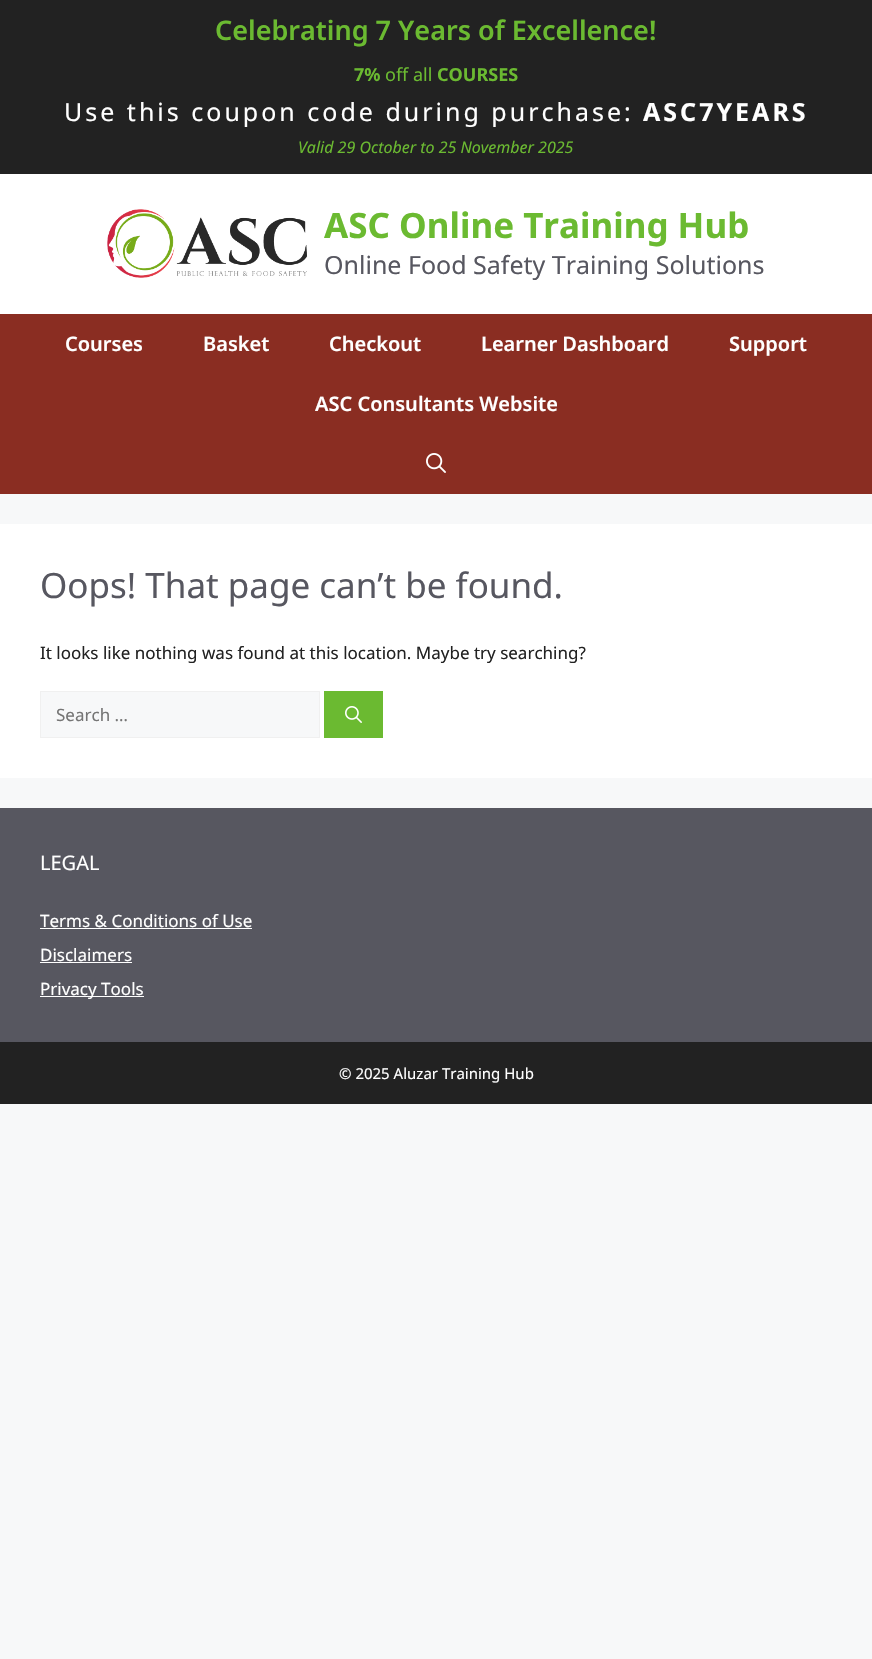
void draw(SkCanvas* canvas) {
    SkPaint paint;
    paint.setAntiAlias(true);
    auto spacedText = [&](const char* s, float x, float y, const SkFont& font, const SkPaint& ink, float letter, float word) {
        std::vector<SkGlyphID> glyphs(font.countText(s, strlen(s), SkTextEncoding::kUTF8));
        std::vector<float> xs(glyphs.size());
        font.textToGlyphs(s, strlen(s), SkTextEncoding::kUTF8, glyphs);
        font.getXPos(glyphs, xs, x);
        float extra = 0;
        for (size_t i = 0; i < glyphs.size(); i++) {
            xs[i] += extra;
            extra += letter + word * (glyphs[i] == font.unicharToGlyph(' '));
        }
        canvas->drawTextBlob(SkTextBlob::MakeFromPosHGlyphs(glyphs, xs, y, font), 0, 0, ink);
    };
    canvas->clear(0xFFF7F8F9);
    paint.setColor(0xFF222222);
    canvas->drawRect(SkRect::MakeXYWH(0, 0, 872, 174), paint);
    SkFont font1(fontMgr->matchFamilyStyle("Noto Sans", SkFontStyle(600, SkFontStyle::kNormal_Width, SkFontStyle::kUpright_Slant)), 27);
    font1.setSubpixel(true);
    paint.setColor(0xFF6BBA31);
    canvas->drawString("Celebrating 7 Years of Excellence!", 215, 40, font1, paint);
    SkFont font2(fontMgr->matchFamilyStyle("Noto Sans", SkFontStyle::Bold()), 18);
    font2.setSubpixel(true);
    canvas->drawString("7%", 354, 81, font2, paint);
    SkFont font3(fontMgr->matchFamilyStyle("Noto Sans", SkFontStyle::Normal()), 18);
    font3.setSubpixel(true);
    canvas->drawString("off all", 385, 81, font3, paint);
    canvas->drawString("COURSES", 437, 81, font2, paint);
    SkFont font4(fontMgr->matchFamilyStyle("Noto Sans", SkFontStyle::Normal()), 25);
    font4.setSubpixel(true);
    paint.setColor(0xFFFFFFFF);
    spacedText("Use this coupon code during purchase:", 64, 121, font4, paint, 3, 0);
    SkFont font5(fontMgr->matchFamilyStyle("Noto Sans", SkFontStyle::Bold()), 25);
    font5.setSubpixel(true);
    spacedText("ASC7YEARS", 643, 121, font5, paint, 3, 0);
    SkFont font6(fontMgr->matchFamilyStyle("Noto Sans", SkFontStyle::Italic()), 16);
    font6.setSubpixel(true);
    paint.setColor(0xFF6BBA31);
    canvas->drawString("Valid 29 October to 25 November 2025", 298, 153, font6, paint);
    paint.setColor(0xFFFFFFFF);
    canvas->drawRect(SkRect::MakeXYWH(0, 174, 872, 140), paint);
    canvas->drawImageRect(SkImages::DeferredFromEncodedData(SkData::MakeFromFileName("img1.png")), SkRect::MakeXYWH(107, 209, 200, 69), SkSamplingOptions());
    SkFont font7(fontMgr->matchFamilyStyle("Noto Sans", SkFontStyle::Bold()), 35);
    font7.setSubpixel(true);
    paint.setColor(0xFF6BBA31);
    canvas->drawString("ASC Online Training Hub", 324, 238, font7, paint);
    paint.setColor(0xFF575760);
    canvas->drawString("Online Food Safety Training Solutions", 324, 274, font4, paint);
    paint.setColor(0xFF8A2D22);
    canvas->drawRect(SkRect::MakeXYWH(0, 314, 872, 180), paint);
    SkFont font8(fontMgr->matchFamilyStyle("Noto Sans", SkFontStyle(600, SkFontStyle::kNormal_Width, SkFontStyle::kUpright_Slant)), 20);
    font8.setSubpixel(true);
    paint.setColor(0xFFFFFFFF);
    canvas->drawString("Courses", 65, 351, font8, paint);
    canvas->drawString("Basket", 203, 351, font8, paint);
    canvas->drawString("Checkout", 329, 351, font8, paint);
    canvas->drawString("Learner Dashboard", 481, 351, font8, paint);
    canvas->drawString("Support", 729, 351, font8, paint);
    canvas->drawString("ASC Consultants Website", 315, 411, font8, paint);
    canvas->drawImageRect(SkImages::DeferredFromEncodedData(SkData::MakeFromFileName("img2.png")), SkRect::MakeXYWH(426, 453, 20, 20), SkSamplingOptions());
    canvas->drawRect(SkRect::MakeXYWH(0, 524, 872, 254), paint);
    SkFont font9(fontMgr->matchFamilyStyle("Noto Sans", SkFontStyle::Normal()), 35);
    font9.setSubpixel(true);
    paint.setColor(0xFF575760);
    canvas->drawString("Oops! That page can’t be found.", 40, 598, font9, paint);
    SkFont font10(fontMgr->matchFamilyStyle("Noto Sans", SkFontStyle::Normal()), 17);
    font10.setSubpixel(true);
    paint.setColor(0xFF222222);
    canvas->drawString("It looks like nothing was found at this location. Maybe try searching?", 40, 659, font10, paint);
    paint.setColor(0xFFF7F8F9);
    canvas->drawRect(SkRect::MakeXYWH(40.5f, 691.5f, 279, 46), paint);
    paint.setStyle(SkPaint::kStroke_Style);
    paint.setStrokeWidth(1);
    paint.setColor(0xFFF0F0F0);
    canvas->drawRect(SkRect::MakeXYWH(40.5f, 691.5f, 279, 46), paint);
    paint.setStyle(SkPaint::kFill_Style);
    paint.setColor(0xFF757575);
    canvas->drawString("Search …", 56, 721, font10, paint);
    paint.setColor(0xFF6BBA31);
    canvas->drawRect(SkRect::MakeXYWH(324, 691, 59, 47), paint);
    canvas->drawImageRect(SkImages::DeferredFromEncodedData(SkData::MakeFromFileName("img3.png")), SkRect::MakeXYWH(345, 706, 17, 17), SkSamplingOptions());
    paint.setColor(0xFF575760);
    canvas->drawRect(SkRect::MakeXYWH(0, 808, 872, 234), paint);
    SkFont font11(fontMgr->matchFamilyStyle("Noto Sans", SkFontStyle::Normal()), 20);
    font11.setSubpixel(true);
    paint.setColor(0xFFFFFFFF);
    canvas->drawString("LEGAL", 40, 870, font11, paint);
    canvas->drawString("Terms & Conditions of Use", 40, 927, font10, paint);
    canvas->drawRect(SkRect::MakeXYWH(40, 928, 212, 1), paint);
    canvas->drawString("Disclaimers", 40, 961, font10, paint);
    canvas->drawRect(SkRect::MakeXYWH(40, 962, 92, 1), paint);
    canvas->drawRect(SkRect::MakeXYWH(40, 996, 104, 1), paint);
    canvas->drawString("Privacy Tools", 40, 995, font10, paint);
    paint.setColor(0xFF222222);
    canvas->drawRect(SkRect::MakeXYWH(0, 1042, 872, 62), paint);
    SkFont font12(fontMgr->matchFamilyStyle("Noto Sans", SkFontStyle::Normal()), 15);
    font12.setSubpixel(true);
    paint.setColor(0xFFFFFFFF);
    canvas->drawString("© 2025 Aluzar Training Hub", 339, 1079, font12, paint);
}
